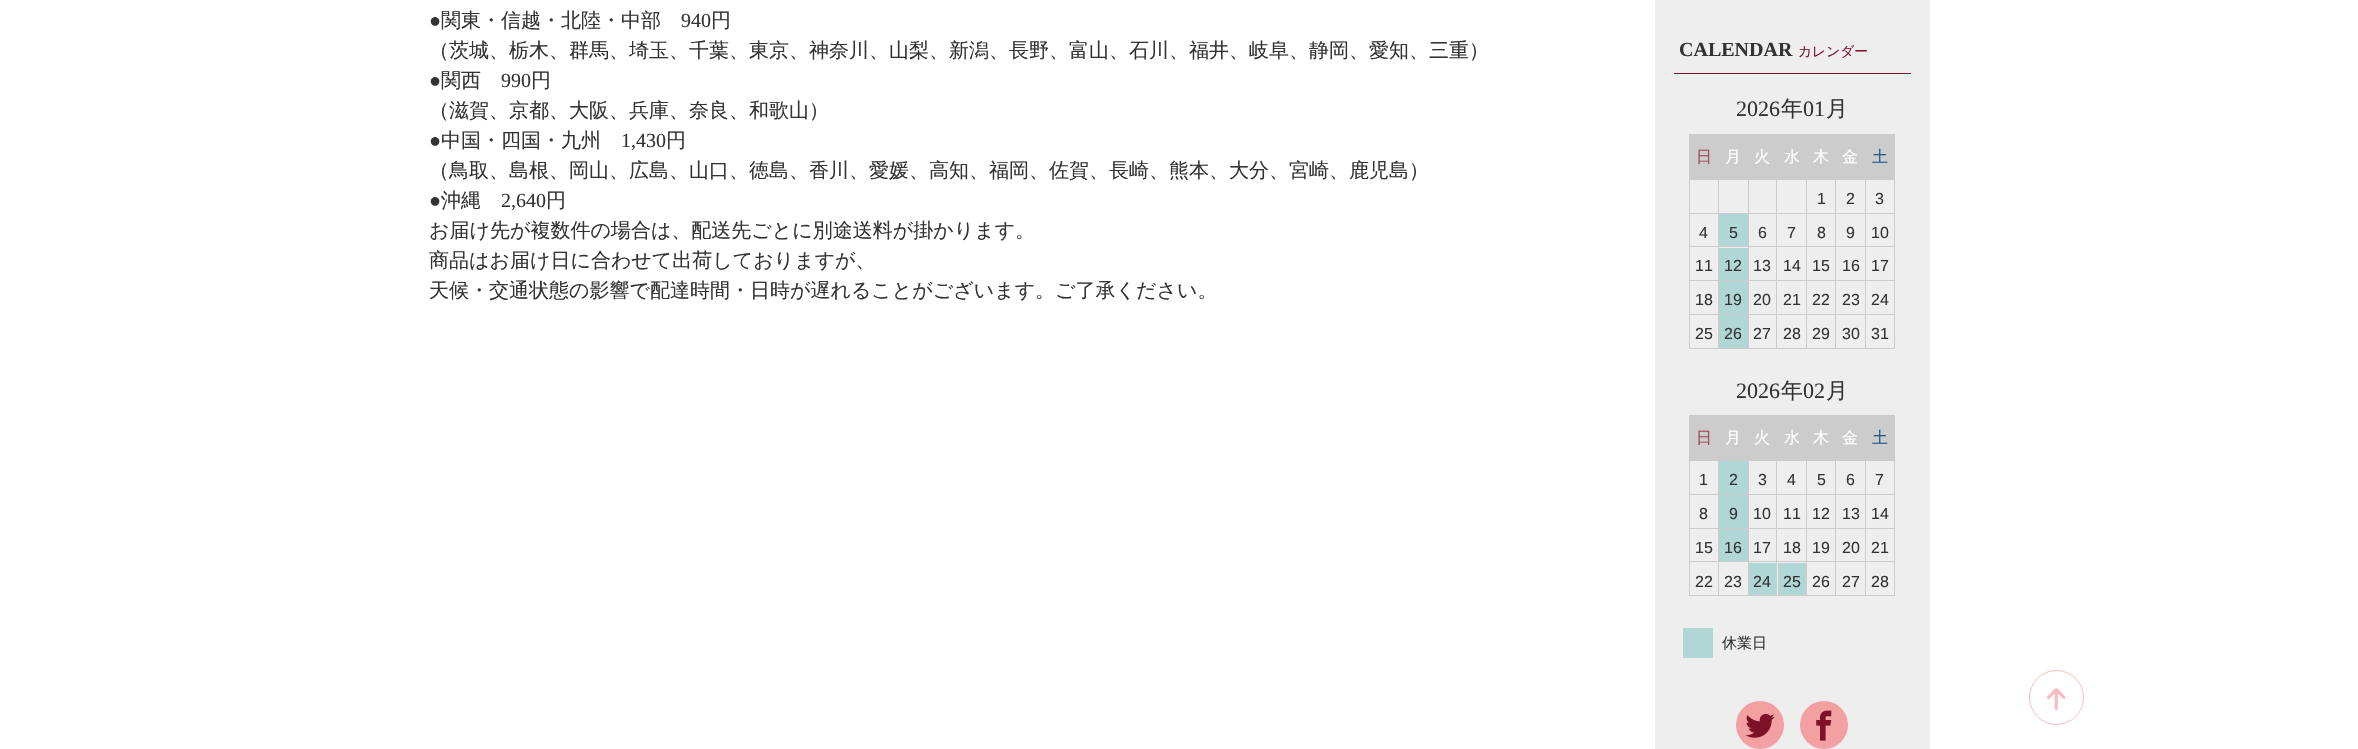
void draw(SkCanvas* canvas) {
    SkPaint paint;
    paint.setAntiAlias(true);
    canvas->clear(0xFFFFFFFF);
    SkFont font1(fontMgr->matchFamilyStyle("Liberation Serif", SkFontStyle::Normal()), 20);
    font1.setSubpixel(true);
    paint.setColor(0xFF333333);
    canvas->drawString("●", 429, 27, font1, paint);
    SkFont font2(fontMgr->matchFamilyStyle("WenQuanYi Zen Hei", SkFontStyle(500, SkFontStyle::kNormal_Width, SkFontStyle::kUpright_Slant)), 20);
    font2.setSubpixel(true);
    canvas->drawString("関東・信越・北陸・中部", 441, 27, font2, paint);
    canvas->drawString("940", 681, 27, font1, paint);
    canvas->drawString("円", 711, 27, font2, paint);
    canvas->drawString("（茨城、栃木、群馬、埼玉、千葉、東京、神奈川、山梨、新潟、長野、富山、石川、福井、岐阜、静岡、愛知、三重）", 429, 57, font2, paint);
    canvas->drawString("●", 429, 87, font1, paint);
    canvas->drawString("関西", 441, 87, font2, paint);
    canvas->drawString("990", 501, 87, font1, paint);
    canvas->drawString("円", 531, 87, font2, paint);
    canvas->drawString("（滋賀、京都、大阪、兵庫、奈良、和歌山）", 429, 117, font2, paint);
    canvas->drawString("●", 429, 147, font1, paint);
    canvas->drawString("中国・四国・九州", 441, 147, font2, paint);
    canvas->drawString("1,430", 621, 147, font1, paint);
    canvas->drawString("円", 666, 147, font2, paint);
    canvas->drawString("（鳥取、島根、岡山、広島、山口、徳島、香川、愛媛、高知、福岡、佐賀、長崎、熊本、大分、宮崎、鹿児島）", 429, 177, font2, paint);
    canvas->drawString("●", 429, 207, font1, paint);
    canvas->drawString("沖縄", 441, 207, font2, paint);
    canvas->drawString("2,640", 501, 207, font1, paint);
    canvas->drawString("円", 546, 207, font2, paint);
    canvas->drawString("お届け先が複数件の場合は、配送先ごとに別途送料が掛かります。", 429, 237, font2, paint);
    canvas->drawString("商品はお届け日に合わせて出荷しておりますが、", 429, 267, font2, paint);
    canvas->drawString("天候・交通状態の影響で配達時間・日時が遅れることがございます。ご了承ください。", 429, 297, font2, paint);
    paint.setColor(0xFFEEEEEE);
    canvas->drawRect(SkRect::MakeXYWH(1655, 0, 275, 749), paint);
    paint.setColor(0xFF7D1128);
    canvas->drawRect(SkRect::MakeXYWH(1674, 73, 237, 1), paint);
    SkFont font3(fontMgr->matchFamilyStyle("Liberation Serif", SkFontStyle::Bold()), 20);
    font3.setSubpixel(true);
    paint.setColor(0xFF333333);
    canvas->drawString("CALENDAR", 1679, 56, font3, paint);
    SkFont font4(fontMgr->matchFamilyStyle("WenQuanYi Zen Hei", SkFontStyle(500, SkFontStyle::kNormal_Width, SkFontStyle::kUpright_Slant)), 13.75f);
    font4.setSubpixel(true);
    paint.setColor(0xFF7D1128);
    canvas->drawString("カレンダー", 1798, 56, font4, paint);
    SkFont font5(fontMgr->matchFamilyStyle("Liberation Serif", SkFontStyle::Normal()), 22);
    font5.setSubpixel(true);
    paint.setColor(0xFF333333);
    canvas->drawString("2026", 1736, 116, font5, paint);
    SkFont font6(fontMgr->matchFamilyStyle("WenQuanYi Zen Hei", SkFontStyle(500, SkFontStyle::kNormal_Width, SkFontStyle::kUpright_Slant)), 22);
    font6.setSubpixel(true);
    canvas->drawString("年", 1781, 116, font6, paint);
    canvas->drawString("01", 1803, 116, font5, paint);
    canvas->drawString("月", 1826, 116, font6, paint);
    paint.setColor(0xFFCCCCCC);
    canvas->drawRect(SkRect::MakeXYWH(1689, 134, 206, 46), paint);
    SkFont font7(fontMgr->matchFamilyStyle("WenQuanYi Zen Hei", SkFontStyle(500, SkFontStyle::kNormal_Width, SkFontStyle::kUpright_Slant)), 16);
    font7.setSubpixel(true);
    paint.setColor(0xFFA54657);
    canvas->drawString("日", 1696, 162, font7, paint);
    paint.setColor(0xFFFFFFFF);
    canvas->drawString("月", 1725, 162, font7, paint);
    canvas->drawString("火", 1754, 162, font7, paint);
    canvas->drawString("水", 1784, 162, font7, paint);
    canvas->drawString("木", 1813, 162, font7, paint);
    canvas->drawString("金", 1842, 162, font7, paint);
    paint.setColor(0xFF235789);
    canvas->drawString("土", 1872, 162, font7, paint);
    paint.setColor(0xFFCCCCCC);
    canvas->drawRect(SkRect::MakeXYWH(1865, 213, 30, 1), paint);
    canvas->drawRect(SkRect::MakeXYWH(1865, 246, 30, 1), paint);
    canvas->drawRect(SkRect::MakeXYWH(1865, 280, 30, 1), paint);
    canvas->drawRect(SkRect::MakeXYWH(1865, 314, 30, 1), paint);
    canvas->drawRect(SkRect::MakeXYWH(1894, 314, 1, 35), paint);
    canvas->drawRect(SkRect::MakeXYWH(1865, 348, 30, 1), paint);
    canvas->drawRect(SkRect::MakeXYWH(1865, 314, 1, 35), paint);
    canvas->drawRect(SkRect::MakeXYWH(1835, 314, 31, 1), paint);
    canvas->drawRect(SkRect::MakeXYWH(1865, 280, 1, 35), paint);
    canvas->drawRect(SkRect::MakeXYWH(1835, 280, 31, 1), paint);
    canvas->drawRect(SkRect::MakeXYWH(1865, 246, 1, 35), paint);
    canvas->drawRect(SkRect::MakeXYWH(1835, 246, 31, 1), paint);
    canvas->drawRect(SkRect::MakeXYWH(1865, 213, 1, 35), paint);
    canvas->drawRect(SkRect::MakeXYWH(1835, 213, 31, 1), paint);
    canvas->drawRect(SkRect::MakeXYWH(1835, 348, 31, 1), paint);
    canvas->drawRect(SkRect::MakeXYWH(1835, 314, 1, 35), paint);
    canvas->drawRect(SkRect::MakeXYWH(1806, 314, 30, 1), paint);
    canvas->drawRect(SkRect::MakeXYWH(1835, 280, 1, 35), paint);
    canvas->drawRect(SkRect::MakeXYWH(1806, 280, 30, 1), paint);
    canvas->drawRect(SkRect::MakeXYWH(1835, 246, 1, 35), paint);
    canvas->drawRect(SkRect::MakeXYWH(1806, 246, 30, 1), paint);
    canvas->drawRect(SkRect::MakeXYWH(1835, 213, 1, 35), paint);
    canvas->drawRect(SkRect::MakeXYWH(1806, 213, 30, 1), paint);
    canvas->drawRect(SkRect::MakeXYWH(1806, 348, 30, 1), paint);
    canvas->drawRect(SkRect::MakeXYWH(1806, 314, 1, 35), paint);
    canvas->drawRect(SkRect::MakeXYWH(1776, 314, 32, 1), paint);
    canvas->drawRect(SkRect::MakeXYWH(1806, 280, 1, 35), paint);
    canvas->drawRect(SkRect::MakeXYWH(1776, 280, 32, 1), paint);
    canvas->drawRect(SkRect::MakeXYWH(1806, 246, 1, 35), paint);
    canvas->drawRect(SkRect::MakeXYWH(1776, 246, 32, 1), paint);
    canvas->drawRect(SkRect::MakeXYWH(1806, 213, 1, 35), paint);
    canvas->drawRect(SkRect::MakeXYWH(1776, 213, 32, 1), paint);
    canvas->drawRect(SkRect::MakeXYWH(1776, 348, 32, 1), paint);
    canvas->drawRect(SkRect::MakeXYWH(1776, 314, 1, 35), paint);
    canvas->drawRect(SkRect::MakeXYWH(1748, 314, 30, 1), paint);
    canvas->drawRect(SkRect::MakeXYWH(1776, 280, 1, 35), paint);
    canvas->drawRect(SkRect::MakeXYWH(1748, 280, 30, 1), paint);
    canvas->drawRect(SkRect::MakeXYWH(1776, 246, 1, 35), paint);
    canvas->drawRect(SkRect::MakeXYWH(1748, 246, 30, 1), paint);
    canvas->drawRect(SkRect::MakeXYWH(1776, 213, 1, 35), paint);
    canvas->drawRect(SkRect::MakeXYWH(1748, 213, 30, 1), paint);
    canvas->drawRect(SkRect::MakeXYWH(1748, 348, 30, 1), paint);
    canvas->drawRect(SkRect::MakeXYWH(1748, 314, 1, 35), paint);
    canvas->drawRect(SkRect::MakeXYWH(1718, 314, 31, 1), paint);
    canvas->drawRect(SkRect::MakeXYWH(1748, 280, 1, 35), paint);
    canvas->drawRect(SkRect::MakeXYWH(1718, 280, 31, 1), paint);
    canvas->drawRect(SkRect::MakeXYWH(1748, 246, 1, 35), paint);
    canvas->drawRect(SkRect::MakeXYWH(1718, 246, 31, 1), paint);
    canvas->drawRect(SkRect::MakeXYWH(1748, 213, 1, 35), paint);
    canvas->drawRect(SkRect::MakeXYWH(1718, 213, 31, 1), paint);
    canvas->drawRect(SkRect::MakeXYWH(1718, 348, 31, 1), paint);
    canvas->drawRect(SkRect::MakeXYWH(1718, 314, 1, 35), paint);
    canvas->drawRect(SkRect::MakeXYWH(1689, 314, 30, 1), paint);
    canvas->drawRect(SkRect::MakeXYWH(1718, 280, 1, 35), paint);
    canvas->drawRect(SkRect::MakeXYWH(1689, 280, 30, 1), paint);
    canvas->drawRect(SkRect::MakeXYWH(1718, 246, 1, 35), paint);
    canvas->drawRect(SkRect::MakeXYWH(1689, 246, 30, 1), paint);
    canvas->drawRect(SkRect::MakeXYWH(1718, 213, 1, 35), paint);
    canvas->drawRect(SkRect::MakeXYWH(1689, 213, 30, 1), paint);
    canvas->drawRect(SkRect::MakeXYWH(1718, 179, 1, 35), paint);
    canvas->drawRect(SkRect::MakeXYWH(1748, 179, 1, 35), paint);
    canvas->drawRect(SkRect::MakeXYWH(1776, 179, 1, 35), paint);
    canvas->drawRect(SkRect::MakeXYWH(1806, 179, 1, 35), paint);
    SkFont font8(fontMgr->matchFamilyStyle("Liberation Sans", SkFontStyle::Normal()), 16);
    font8.setSubpixel(true);
    paint.setColor(0xFF333333);
    canvas->drawString("1", 1817, 204, font8, paint);
    paint.setColor(0xFFCCCCCC);
    canvas->drawRect(SkRect::MakeXYWH(1835, 179, 1, 35), paint);
    paint.setColor(0xFF333333);
    canvas->drawString("2", 1846, 204, font8, paint);
    paint.setColor(0xFFCCCCCC);
    canvas->drawRect(SkRect::MakeXYWH(1865, 179, 1, 35), paint);
    paint.setColor(0xFF333333);
    canvas->drawString("3", 1875, 204, font8, paint);
    paint.setColor(0xFFCCCCCC);
    canvas->drawRect(SkRect::MakeXYWH(1689, 348, 30, 1), paint);
    canvas->drawRect(SkRect::MakeXYWH(1689, 314, 1, 35), paint);
    canvas->drawRect(SkRect::MakeXYWH(1689, 280, 1, 35), paint);
    canvas->drawRect(SkRect::MakeXYWH(1689, 246, 1, 35), paint);
    canvas->drawRect(SkRect::MakeXYWH(1689, 179, 1, 69), paint);
    paint.setColor(0xFF333333);
    canvas->drawString("4", 1699, 238, font8, paint);
    paint.setColor(0xFFB0D7D5);
    canvas->drawRect(SkRect::MakeXYWH(1719, 214, 29, 32), paint);
    paint.setColor(0xFF333333);
    canvas->drawString("5", 1729, 238, font8, paint);
    canvas->drawString("6", 1758, 238, font8, paint);
    canvas->drawString("7", 1787, 238, font8, paint);
    canvas->drawString("8", 1817, 238, font8, paint);
    canvas->drawString("9", 1846, 238, font8, paint);
    paint.setColor(0xFFCCCCCC);
    canvas->drawRect(SkRect::MakeXYWH(1894, 280, 1, 35), paint);
    canvas->drawRect(SkRect::MakeXYWH(1894, 246, 1, 35), paint);
    canvas->drawRect(SkRect::MakeXYWH(1894, 179, 1, 69), paint);
    paint.setColor(0xFF333333);
    canvas->drawString("10", 1871, 238, font8, paint);
    canvas->drawString("11", 1695, 271, font8, paint);
    paint.setColor(0xFFB0D7D5);
    canvas->drawRect(SkRect::MakeXYWH(1719, 248, 29, 32), paint);
    paint.setColor(0xFF333333);
    canvas->drawString("12", 1724, 271, font8, paint);
    canvas->drawString("13", 1753, 271, font8, paint);
    canvas->drawString("14", 1783, 271, font8, paint);
    canvas->drawString("15", 1812, 271, font8, paint);
    canvas->drawString("16", 1842, 271, font8, paint);
    canvas->drawString("17", 1871, 271, font8, paint);
    canvas->drawString("18", 1695, 305, font8, paint);
    paint.setColor(0xFFB0D7D5);
    canvas->drawRect(SkRect::MakeXYWH(1719, 281, 29, 33), paint);
    paint.setColor(0xFF333333);
    canvas->drawString("19", 1724, 305, font8, paint);
    canvas->drawString("20", 1753, 305, font8, paint);
    canvas->drawString("21", 1783, 305, font8, paint);
    canvas->drawString("22", 1812, 305, font8, paint);
    canvas->drawString("23", 1842, 305, font8, paint);
    canvas->drawString("24", 1871, 305, font8, paint);
    canvas->drawString("25", 1695, 339, font8, paint);
    paint.setColor(0xFFB0D7D5);
    canvas->drawRect(SkRect::MakeXYWH(1719, 315, 29, 33), paint);
    paint.setColor(0xFF333333);
    canvas->drawString("26", 1724, 339, font8, paint);
    canvas->drawString("27", 1753, 339, font8, paint);
    canvas->drawString("28", 1783, 339, font8, paint);
    canvas->drawString("29", 1812, 339, font8, paint);
    canvas->drawString("30", 1842, 339, font8, paint);
    canvas->drawString("31", 1871, 339, font8, paint);
    canvas->drawString("2026", 1736, 398, font5, paint);
    canvas->drawString("年", 1781, 398, font6, paint);
    canvas->drawString("02", 1803, 398, font5, paint);
    canvas->drawString("月", 1826, 398, font6, paint);
    paint.setColor(0xFFCCCCCC);
    canvas->drawRect(SkRect::MakeXYWH(1689, 415, 206, 46), paint);
    paint.setColor(0xFFA54657);
    canvas->drawString("日", 1696, 443, font7, paint);
    paint.setColor(0xFFFFFFFF);
    canvas->drawString("月", 1725, 443, font7, paint);
    canvas->drawString("火", 1754, 443, font7, paint);
    canvas->drawString("水", 1784, 443, font7, paint);
    canvas->drawString("木", 1813, 443, font7, paint);
    canvas->drawString("金", 1842, 443, font7, paint);
    paint.setColor(0xFF235789);
    canvas->drawString("土", 1872, 443, font7, paint);
    paint.setColor(0xFF333333);
    canvas->drawString("1", 1699, 485, font8, paint);
    paint.setColor(0xFFCCCCCC);
    canvas->drawRect(SkRect::MakeXYWH(1865, 494, 30, 1), paint);
    canvas->drawRect(SkRect::MakeXYWH(1865, 528, 30, 1), paint);
    canvas->drawRect(SkRect::MakeXYWH(1865, 561, 30, 1), paint);
    canvas->drawRect(SkRect::MakeXYWH(1894, 561, 1, 35), paint);
    canvas->drawRect(SkRect::MakeXYWH(1865, 595, 30, 1), paint);
    canvas->drawRect(SkRect::MakeXYWH(1865, 561, 1, 35), paint);
    canvas->drawRect(SkRect::MakeXYWH(1835, 561, 31, 1), paint);
    canvas->drawRect(SkRect::MakeXYWH(1865, 528, 1, 35), paint);
    canvas->drawRect(SkRect::MakeXYWH(1835, 528, 31, 1), paint);
    canvas->drawRect(SkRect::MakeXYWH(1865, 494, 1, 35), paint);
    canvas->drawRect(SkRect::MakeXYWH(1835, 494, 31, 1), paint);
    canvas->drawRect(SkRect::MakeXYWH(1835, 595, 31, 1), paint);
    canvas->drawRect(SkRect::MakeXYWH(1835, 561, 1, 35), paint);
    canvas->drawRect(SkRect::MakeXYWH(1806, 561, 30, 1), paint);
    canvas->drawRect(SkRect::MakeXYWH(1835, 528, 1, 35), paint);
    canvas->drawRect(SkRect::MakeXYWH(1806, 528, 30, 1), paint);
    canvas->drawRect(SkRect::MakeXYWH(1835, 494, 1, 35), paint);
    canvas->drawRect(SkRect::MakeXYWH(1806, 494, 30, 1), paint);
    canvas->drawRect(SkRect::MakeXYWH(1806, 595, 30, 1), paint);
    canvas->drawRect(SkRect::MakeXYWH(1806, 561, 1, 35), paint);
    canvas->drawRect(SkRect::MakeXYWH(1776, 561, 32, 1), paint);
    canvas->drawRect(SkRect::MakeXYWH(1806, 528, 1, 35), paint);
    canvas->drawRect(SkRect::MakeXYWH(1776, 528, 32, 1), paint);
    canvas->drawRect(SkRect::MakeXYWH(1806, 494, 1, 35), paint);
    canvas->drawRect(SkRect::MakeXYWH(1776, 494, 32, 1), paint);
    canvas->drawRect(SkRect::MakeXYWH(1776, 595, 32, 1), paint);
    canvas->drawRect(SkRect::MakeXYWH(1776, 561, 1, 35), paint);
    canvas->drawRect(SkRect::MakeXYWH(1748, 561, 30, 1), paint);
    canvas->drawRect(SkRect::MakeXYWH(1776, 528, 1, 35), paint);
    canvas->drawRect(SkRect::MakeXYWH(1748, 528, 30, 1), paint);
    canvas->drawRect(SkRect::MakeXYWH(1776, 494, 1, 35), paint);
    canvas->drawRect(SkRect::MakeXYWH(1748, 494, 30, 1), paint);
    canvas->drawRect(SkRect::MakeXYWH(1748, 595, 30, 1), paint);
    canvas->drawRect(SkRect::MakeXYWH(1748, 561, 1, 35), paint);
    canvas->drawRect(SkRect::MakeXYWH(1718, 561, 31, 1), paint);
    canvas->drawRect(SkRect::MakeXYWH(1748, 528, 1, 35), paint);
    canvas->drawRect(SkRect::MakeXYWH(1718, 528, 31, 1), paint);
    canvas->drawRect(SkRect::MakeXYWH(1748, 494, 1, 35), paint);
    canvas->drawRect(SkRect::MakeXYWH(1718, 494, 31, 1), paint);
    canvas->drawRect(SkRect::MakeXYWH(1718, 595, 31, 1), paint);
    canvas->drawRect(SkRect::MakeXYWH(1718, 561, 1, 35), paint);
    canvas->drawRect(SkRect::MakeXYWH(1689, 561, 30, 1), paint);
    canvas->drawRect(SkRect::MakeXYWH(1718, 528, 1, 35), paint);
    canvas->drawRect(SkRect::MakeXYWH(1689, 528, 30, 1), paint);
    canvas->drawRect(SkRect::MakeXYWH(1718, 494, 1, 35), paint);
    canvas->drawRect(SkRect::MakeXYWH(1689, 494, 30, 1), paint);
    canvas->drawRect(SkRect::MakeXYWH(1718, 460, 1, 35), paint);
    paint.setColor(0xFFB0D7D5);
    canvas->drawRect(SkRect::MakeXYWH(1719, 461, 29, 33), paint);
    paint.setColor(0xFF333333);
    canvas->drawString("2", 1729, 485, font8, paint);
    paint.setColor(0xFFCCCCCC);
    canvas->drawRect(SkRect::MakeXYWH(1748, 460, 1, 35), paint);
    paint.setColor(0xFF333333);
    canvas->drawString("3", 1758, 485, font8, paint);
    paint.setColor(0xFFCCCCCC);
    canvas->drawRect(SkRect::MakeXYWH(1776, 460, 1, 35), paint);
    paint.setColor(0xFF333333);
    canvas->drawString("4", 1787, 485, font8, paint);
    paint.setColor(0xFFCCCCCC);
    canvas->drawRect(SkRect::MakeXYWH(1806, 460, 1, 35), paint);
    paint.setColor(0xFF333333);
    canvas->drawString("5", 1817, 485, font8, paint);
    paint.setColor(0xFFCCCCCC);
    canvas->drawRect(SkRect::MakeXYWH(1835, 460, 1, 35), paint);
    paint.setColor(0xFF333333);
    canvas->drawString("6", 1846, 485, font8, paint);
    paint.setColor(0xFFCCCCCC);
    canvas->drawRect(SkRect::MakeXYWH(1865, 460, 1, 35), paint);
    paint.setColor(0xFF333333);
    canvas->drawString("7", 1875, 485, font8, paint);
    paint.setColor(0xFFCCCCCC);
    canvas->drawRect(SkRect::MakeXYWH(1689, 595, 30, 1), paint);
    canvas->drawRect(SkRect::MakeXYWH(1689, 561, 1, 35), paint);
    canvas->drawRect(SkRect::MakeXYWH(1689, 528, 1, 35), paint);
    canvas->drawRect(SkRect::MakeXYWH(1689, 460, 1, 69), paint);
    paint.setColor(0xFF333333);
    canvas->drawString("8", 1699, 519, font8, paint);
    paint.setColor(0xFFB0D7D5);
    canvas->drawRect(SkRect::MakeXYWH(1719, 495, 29, 33), paint);
    paint.setColor(0xFF333333);
    canvas->drawString("9", 1729, 519, font8, paint);
    canvas->drawString("10", 1753, 519, font8, paint);
    canvas->drawString("11", 1783, 519, font8, paint);
    canvas->drawString("12", 1812, 519, font8, paint);
    canvas->drawString("13", 1842, 519, font8, paint);
    paint.setColor(0xFFCCCCCC);
    canvas->drawRect(SkRect::MakeXYWH(1894, 528, 1, 35), paint);
    canvas->drawRect(SkRect::MakeXYWH(1894, 460, 1, 69), paint);
    paint.setColor(0xFF333333);
    canvas->drawString("14", 1871, 519, font8, paint);
    canvas->drawString("15", 1695, 553, font8, paint);
    paint.setColor(0xFFB0D7D5);
    canvas->drawRect(SkRect::MakeXYWH(1719, 529, 29, 32), paint);
    paint.setColor(0xFF333333);
    canvas->drawString("16", 1724, 553, font8, paint);
    canvas->drawString("17", 1753, 553, font8, paint);
    canvas->drawString("18", 1783, 553, font8, paint);
    canvas->drawString("19", 1812, 553, font8, paint);
    canvas->drawString("20", 1842, 553, font8, paint);
    canvas->drawString("21", 1871, 553, font8, paint);
    canvas->drawString("22", 1695, 587, font8, paint);
    canvas->drawString("23", 1724, 587, font8, paint);
    paint.setColor(0xFFB0D7D5);
    canvas->drawRect(SkRect::MakeXYWH(1749, 563, 27, 32), paint);
    paint.setColor(0xFF333333);
    canvas->drawString("24", 1753, 587, font8, paint);
    paint.setColor(0xFFB0D7D5);
    canvas->drawRect(SkRect::MakeXYWH(1778, 563, 28, 32), paint);
    paint.setColor(0xFF333333);
    canvas->drawString("25", 1783, 587, font8, paint);
    canvas->drawString("26", 1812, 587, font8, paint);
    canvas->drawString("27", 1842, 587, font8, paint);
    canvas->drawString("28", 1871, 587, font8, paint);
    paint.setColor(0xFFB0D7D5);
    canvas->drawRect(SkRect::MakeXYWH(1683, 628, 30, 30), paint);
    SkFont font9(fontMgr->matchFamilyStyle("WenQuanYi Zen Hei", SkFontStyle(500, SkFontStyle::kNormal_Width, SkFontStyle::kUpright_Slant)), 15);
    font9.setSubpixel(true);
    paint.setColor(0xFF333333);
    canvas->drawString("休業日", 1722, 648, font9, paint);
    paint.setColor(0xFFF2A0A1);
    canvas->drawCircle(1760, 725, 24, paint);
    canvas->drawImageRect(SkImages::DeferredFromEncodedData(SkData::MakeFromFileName("img1.png")), SkRect::MakeXYWH(1745, 713, 30, 25), SkSamplingOptions());
    canvas->drawCircle(1824, 725, 24, paint);
    canvas->drawImageRect(SkImages::DeferredFromEncodedData(SkData::MakeFromFileName("img2.png")), SkRect::MakeXYWH(1816, 710, 16, 31), SkSamplingOptions());
    paint.setStyle(SkPaint::kStroke_Style);
    paint.setStrokeWidth(1);
    paint.setColor(0xFFFABCBD);
    canvas->drawCircle(2056.5f, 697.5f, 27, paint);
    canvas->drawImageRect(SkImages::DeferredFromEncodedData(SkData::MakeFromFileName("img3.png")), SkRect::MakeXYWH(2046, 688, 20, 22), SkSamplingOptions());
}
